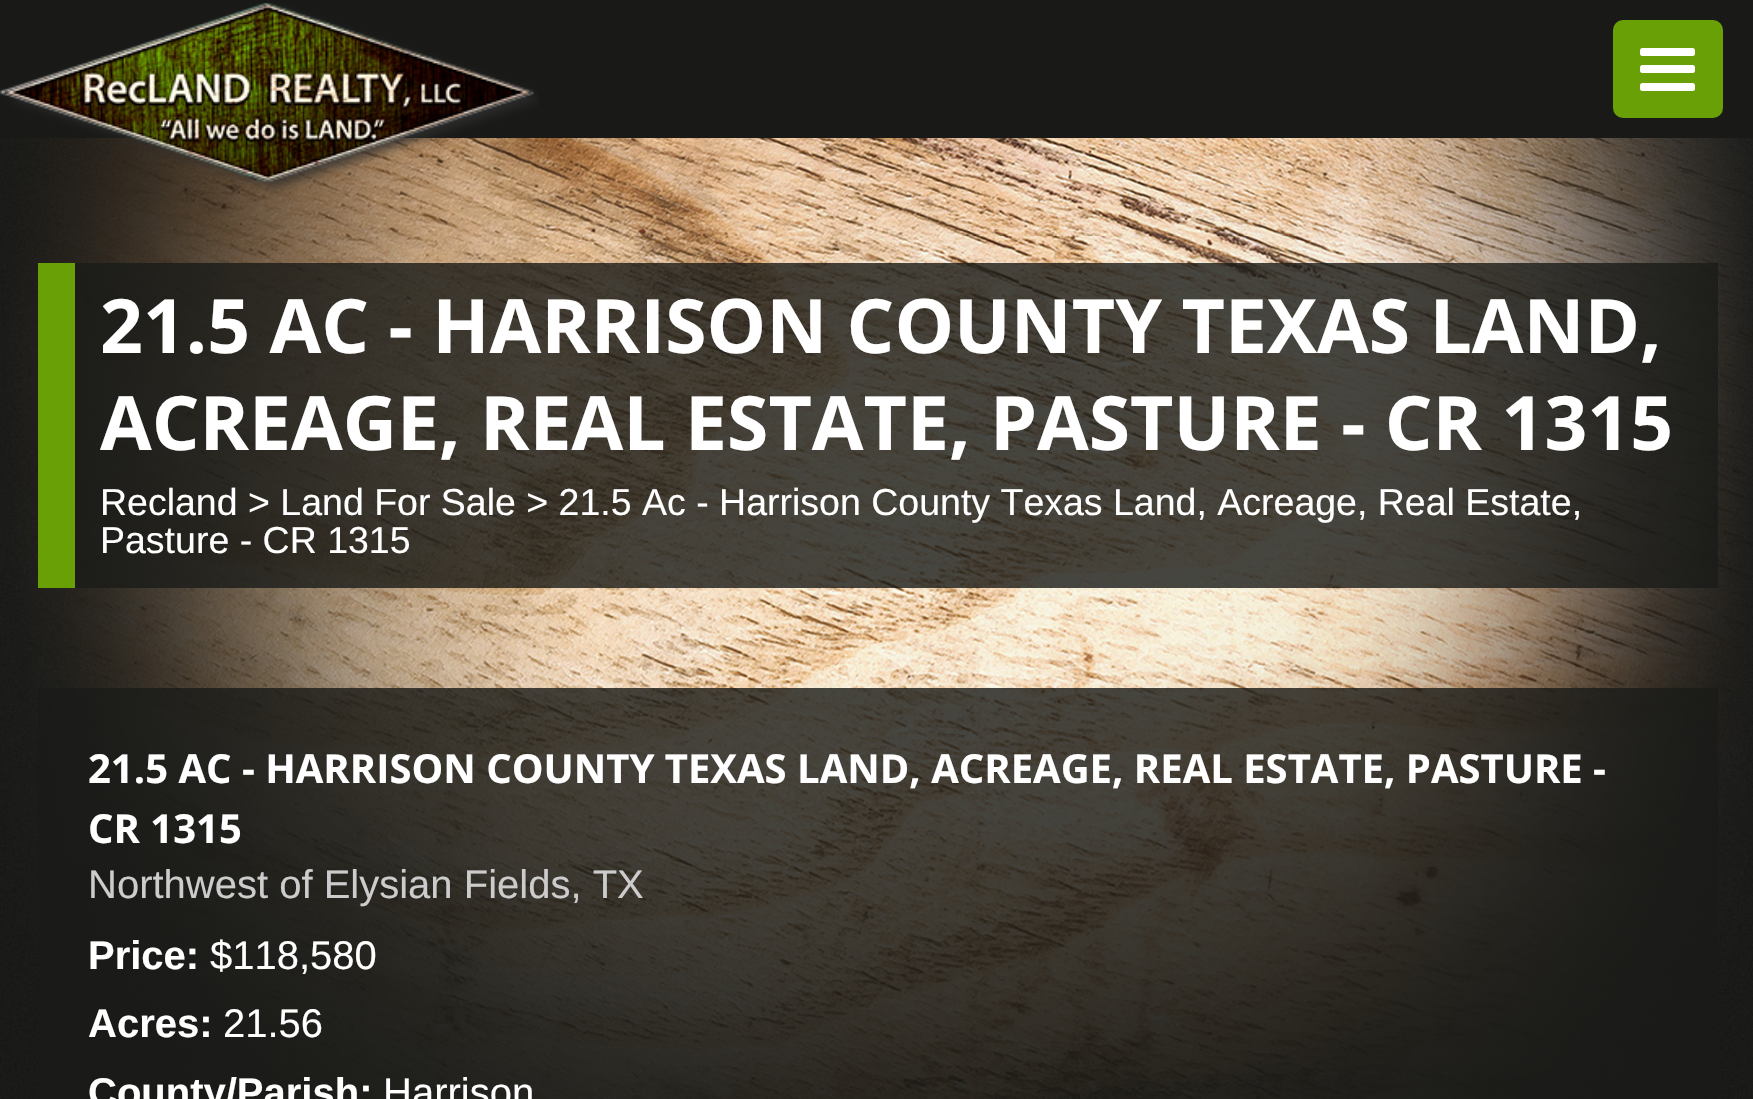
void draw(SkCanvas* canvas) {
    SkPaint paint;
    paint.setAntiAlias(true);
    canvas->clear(0xFFFFFFFF);
    canvas->drawImageRect(SkImages::DeferredFromEncodedData(SkData::MakeFromFileName("img1.png")), SkRect::MakeXYWH(0, 138, 1753, 961), SkSamplingOptions());
    paint.setColor(0xFF191A18);
    canvas->drawRect(SkRect::MakeXYWH(0, 0, 1753, 138), paint);
    canvas->drawImageRect(SkImages::DeferredFromEncodedData(SkData::MakeFromFileName("img2.png")), SkRect::MakeXYWH(0, 3, 539, 190), SkSamplingOptions());
    paint.setColor(0xFF68A005);
    canvas->drawRoundRect(SkRect::MakeXYWH(1619.5f, 26.5f, 97, 85), 3.5f, 3.5f, paint);
    paint.setStyle(SkPaint::kStroke_Style);
    paint.setStrokeWidth(13);
    canvas->drawRoundRect(SkRect::MakeXYWH(1619.5f, 26.5f, 97, 85), 3.5f, 3.5f, paint);
    paint.setStyle(SkPaint::kFill_Style);
    paint.setColor(0xFFFFFFFF);
    canvas->drawRoundRect(SkRect::MakeXYWH(1640, 48, 55, 8), 2.5f, 2.5f, paint);
    canvas->drawRoundRect(SkRect::MakeXYWH(1640, 65, 55, 8), 2.5f, 2.5f, paint);
    canvas->drawRoundRect(SkRect::MakeXYWH(1640, 83, 55, 8), 2.5f, 2.5f, paint);
    paint.setColor(0xCC191A18);
    canvas->drawRect(SkRect::MakeXYWH(75, 263, 1643, 220), paint);
    SkFont font1(fontMgr->matchFamilyStyle("Open Sans", SkFontStyle::Bold()), 75);
    font1.setSubpixel(true);
    paint.setColor(0xFFFFFFFF);
    canvas->drawString("21.5 AC - HARRISON COUNTY TEXAS LAND,", 100, 353, font1, paint);
    canvas->drawString("ACREAGE, REAL ESTATE, PASTURE - CR 1315", 100, 450, font1, paint);
    paint.setColor(0xCC191A18);
    canvas->drawRect(SkRect::MakeXYWH(75, 483, 1643, 105), paint);
    paint.setColor(0xFF68A005);
    canvas->drawRect(SkRect::MakeXYWH(38, 263, 37, 325), paint);
    SkFont font2(fontMgr->matchFamilyStyle("Liberation Sans", SkFontStyle::Normal()), 37.5f);
    font2.setSubpixel(true);
    paint.setColor(0xFFFFFFFF);
    canvas->drawString("Recland > Land For Sale > 21.5 Ac - Harrison County Texas Land, Acreage, Real Estate,", 100, 515, font2, paint);
    canvas->drawString("Pasture - CR 1315", 100, 553, font2, paint);
    paint.setColor(0xCC191A18);
    canvas->drawRect(SkRect::MakeXYWH(38, 688, 1680, 411), paint);
    SkFont font3(fontMgr->matchFamilyStyle("Open Sans", SkFontStyle::Bold()), 40);
    font3.setSubpixel(true);
    paint.setColor(0xFFFFFFFF);
    canvas->drawString("21.5 AC - HARRISON COUNTY TEXAS LAND, ACREAGE, REAL ESTATE, PASTURE -", 88, 783, font3, paint);
    canvas->drawString("CR 1315", 88, 843, font3, paint);
    SkFont font4(fontMgr->matchFamilyStyle("Liberation Sans", SkFontStyle::Normal()), 40);
    font4.setSubpixel(true);
    paint.setColor(0xFFCCCCCC);
    canvas->drawString("Northwest of Elysian Fields, TX", 88, 898, font4, paint);
    SkFont font5(fontMgr->matchFamilyStyle("Liberation Sans", SkFontStyle::Bold()), 40);
    font5.setSubpixel(true);
    paint.setColor(0xFFFFFFFF);
    canvas->drawString("Price:", 88, 969, font5, paint);
    canvas->drawString("$118,580", 210, 969, font4, paint);
    canvas->drawString("Acres:", 88, 1037, font5, paint);
    canvas->drawString("21.56", 223, 1037, font4, paint);
    canvas->drawString("County/Parish:", 88, 1106, font5, paint);
    canvas->drawString("Harrison", 383, 1106, font4, paint);
}
